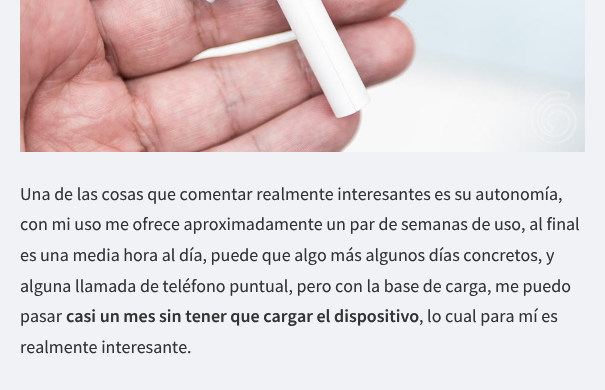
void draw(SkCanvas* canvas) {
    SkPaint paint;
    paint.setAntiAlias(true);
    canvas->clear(0xFFF0F2F5);
    canvas->drawImageRect(SkImages::DeferredFromEncodedData(SkData::MakeFromFileName("img1.png")), SkRect::MakeXYWH(20, 0, 565, 152), SkSamplingOptions());
    SkFont font1(fontMgr->matchFamilyStyle("Source Sans Pro", SkFontStyle::Normal()), 18);
    font1.setSubpixel(true);
    paint.setColor(0xFF333333);
    canvas->drawString("Una de las cosas que comentar realmente interesantes es su autonomía,", 20, 200, font1, paint);
    canvas->drawString("con mi uso me ofrece aproximadamente un par de semanas de uso, al final", 20, 230, font1, paint);
    canvas->drawString("es una media hora al día, puede que algo más algunos días concretos, y", 20, 261, font1, paint);
    canvas->drawString("alguna llamada de teléfono puntual, pero con la base de carga, me puedo", 20, 292, font1, paint);
    canvas->drawString("pasar", 20, 322, font1, paint);
    SkFont font2(fontMgr->matchFamilyStyle("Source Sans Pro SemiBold", SkFontStyle(600, SkFontStyle::kNormal_Width, SkFontStyle::kUpright_Slant)), 18);
    font2.setSubpixel(true);
    canvas->drawString("casi un mes sin tener que cargar el dispositivo", 66, 322, font2, paint);
    canvas->drawString(", lo cual para mí es", 419, 322, font1, paint);
    canvas->drawString("realmente interesante.", 20, 353, font1, paint);
}
